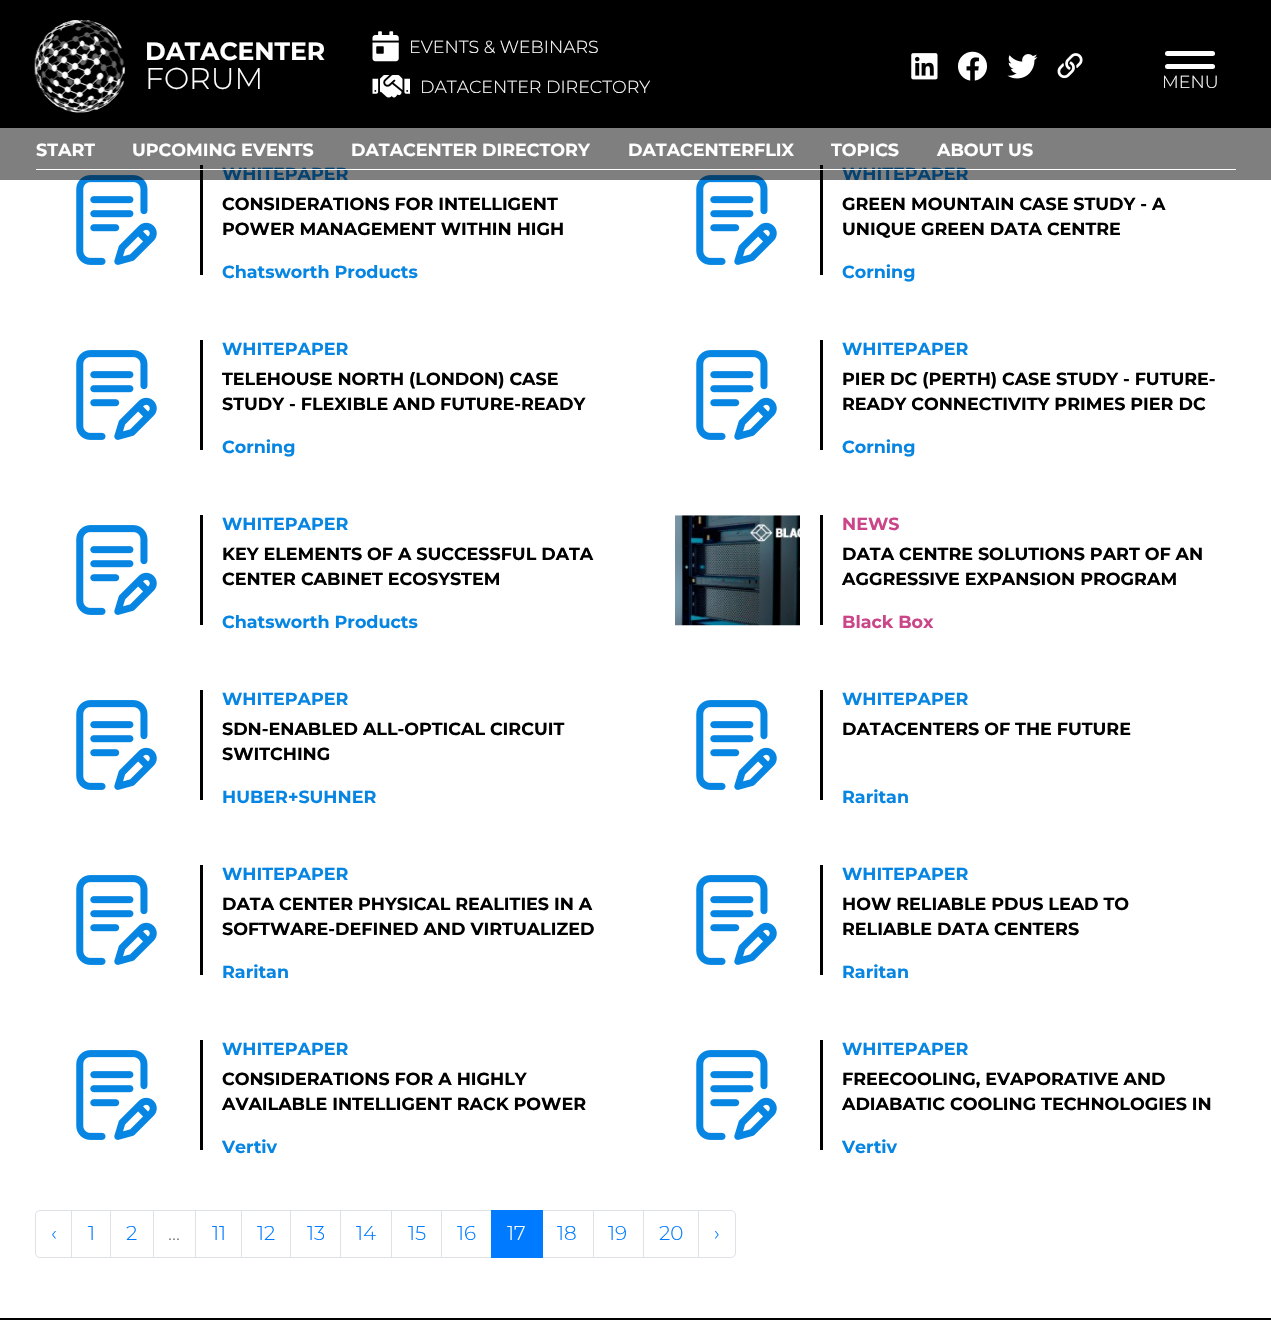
void draw(SkCanvas* canvas) {
    SkPaint paint;
    paint.setAntiAlias(true);
    canvas->clear(0xFFFFFFFF);
    paint.setColor(0xFF000000);
    canvas->drawRect(SkRect::MakeXYWH(0, 0, 1271, 128), paint);
    canvas->drawImageRect(SkImages::DeferredFromEncodedData(SkData::MakeFromFileName("img1.png")), SkRect::MakeXYWH(34, 20, 91, 93), SkSamplingOptions());
    SkFont font1(fontMgr->matchFamilyStyle("Montserrat", SkFontStyle::Bold()), 25);
    font1.setSubpixel(true);
    paint.setColor(0xFFFFFFFF);
    canvas->drawString("DATACENTER", 145, 60, font1, paint);
    SkFont font2(fontMgr->matchFamilyStyle("Montserrat", SkFontStyle(300, SkFontStyle::kNormal_Width, SkFontStyle::kUpright_Slant)), 30);
    font2.setSubpixel(true);
    canvas->drawString("FORUM", 145, 89, font2, paint);
    canvas->drawImageRect(SkImages::DeferredFromEncodedData(SkData::MakeFromFileName("img2.png")), SkRect::MakeXYWH(372, 31, 27, 31), SkSamplingOptions());
    SkFont font3(fontMgr->matchFamilyStyle("Montserrat", SkFontStyle(300, SkFontStyle::kNormal_Width, SkFontStyle::kUpright_Slant)), 17.5f);
    font3.setSubpixel(true);
    canvas->drawString("EVENTS & WEBINARS", 409, 53, font3, paint);
    canvas->drawImageRect(SkImages::DeferredFromEncodedData(SkData::MakeFromFileName("img3.png")), SkRect::MakeXYWH(372, 75, 38, 23), SkSamplingOptions());
    canvas->drawString("DATACENTER DIRECTORY", 420, 93, font3, paint);
    canvas->drawImageRect(SkImages::DeferredFromEncodedData(SkData::MakeFromFileName("img4.png")), SkRect::MakeXYWH(911, 53, 27, 27), SkSamplingOptions());
    canvas->drawImageRect(SkImages::DeferredFromEncodedData(SkData::MakeFromFileName("img5.png")), SkRect::MakeXYWH(958, 51, 29, 30), SkSamplingOptions());
    canvas->drawImageRect(SkImages::DeferredFromEncodedData(SkData::MakeFromFileName("img6.png")), SkRect::MakeXYWH(1007, 54, 31, 25), SkSamplingOptions());
    canvas->drawImageRect(SkImages::DeferredFromEncodedData(SkData::MakeFromFileName("img7.png")), SkRect::MakeXYWH(1057, 53, 26, 26), SkSamplingOptions());
    canvas->drawRoundRect(SkRect::MakeXYWH(1165, 51, 50, 5), 2.5f, 2.5f, paint);
    canvas->drawRoundRect(SkRect::MakeXYWH(1165, 64, 50, 5), 2.5f, 2.5f, paint);
    canvas->drawString("MENU", 1162, 88, font3, paint);
    canvas->drawImageRect(SkImages::DeferredFromEncodedData(SkData::MakeFromFileName("img8.png")), SkRect::MakeXYWH(76, 175, 81, 90), SkSamplingOptions());
    paint.setColor(0xFF000000);
    canvas->drawRect(SkRect::MakeXYWH(200, 165, 3, 110), paint);
    SkFont font4(fontMgr->matchFamilyStyle("Montserrat", SkFontStyle::Bold()), 17.5f);
    font4.setSubpixel(true);
    paint.setColor(0xFF0785E2);
    canvas->drawString("WHITEPAPER", 222, 180, font4, paint);
    canvas->drawImageRect(SkImages::DeferredFromEncodedData(SkData::MakeFromFileName("img8.png")), SkRect::MakeXYWH(696, 175, 81, 90), SkSamplingOptions());
    paint.setColor(0xFF000000);
    canvas->drawRect(SkRect::MakeXYWH(820, 165, 3, 110), paint);
    paint.setColor(0xFF0785E2);
    canvas->drawString("WHITEPAPER", 842, 180, font4, paint);
    paint.setColor(0x80000000);
    canvas->drawRect(SkRect::MakeXYWH(0, 128, 1271, 52), paint);
    paint.setColor(0xFFFFFFFF);
    canvas->drawRect(SkRect::MakeXYWH(36, 169, 1200, 1), paint);
    canvas->drawString("START", 36, 156, font4, paint);
    canvas->drawString("UPCOMING EVENTS", 132, 156, font4, paint);
    canvas->drawString("DATACENTER DIRECTORY", 351, 156, font4, paint);
    canvas->drawString("DATACENTERFLIX", 628, 156, font4, paint);
    canvas->drawString("TOPICS", 831, 156, font4, paint);
    canvas->drawString("ABOUT US", 937, 156, font4, paint);
    paint.setColor(0xFF000000);
    canvas->drawString("CONSIDERATIONS FOR INTELLIGENT", 222, 210, font4, paint);
    canvas->drawString("POWER MANAGEMENT WITHIN HIGH", 222, 235, font4, paint);
    paint.setColor(0xFF0785E2);
    canvas->drawString("Chatsworth Products", 222, 278, font4, paint);
    paint.setColor(0xFF000000);
    canvas->drawString("GREEN MOUNTAIN CASE STUDY - A", 842, 210, font4, paint);
    canvas->drawString("UNIQUE GREEN DATA CENTRE", 842, 235, font4, paint);
    paint.setColor(0xFF0785E2);
    canvas->drawString("Corning", 842, 278, font4, paint);
    canvas->drawImageRect(SkImages::DeferredFromEncodedData(SkData::MakeFromFileName("img8.png")), SkRect::MakeXYWH(76, 350, 81, 90), SkSamplingOptions());
    paint.setColor(0xFF000000);
    canvas->drawRect(SkRect::MakeXYWH(200, 340, 3, 110), paint);
    paint.setColor(0xFF0785E2);
    canvas->drawString("WHITEPAPER", 222, 355, font4, paint);
    paint.setColor(0xFF000000);
    canvas->drawString("TELEHOUSE NORTH (LONDON) CASE", 222, 385, font4, paint);
    canvas->drawString("STUDY - FLEXIBLE AND FUTURE-READY", 222, 410, font4, paint);
    paint.setColor(0xFF0785E2);
    canvas->drawString("Corning", 222, 453, font4, paint);
    canvas->drawImageRect(SkImages::DeferredFromEncodedData(SkData::MakeFromFileName("img8.png")), SkRect::MakeXYWH(696, 350, 81, 90), SkSamplingOptions());
    paint.setColor(0xFF000000);
    canvas->drawRect(SkRect::MakeXYWH(820, 340, 3, 110), paint);
    paint.setColor(0xFF0785E2);
    canvas->drawString("WHITEPAPER", 842, 355, font4, paint);
    paint.setColor(0xFF000000);
    canvas->drawString("PIER DC (PERTH) CASE STUDY - FUTURE-", 842, 385, font4, paint);
    canvas->drawString("READY CONNECTIVITY PRIMES PIER DC", 842, 410, font4, paint);
    paint.setColor(0xFF0785E2);
    canvas->drawString("Corning", 842, 453, font4, paint);
    canvas->drawImageRect(SkImages::DeferredFromEncodedData(SkData::MakeFromFileName("img8.png")), SkRect::MakeXYWH(76, 525, 81, 90), SkSamplingOptions());
    paint.setColor(0xFF000000);
    canvas->drawRect(SkRect::MakeXYWH(200, 515, 3, 110), paint);
    paint.setColor(0xFF0785E2);
    canvas->drawString("WHITEPAPER", 222, 530, font4, paint);
    paint.setColor(0xFF000000);
    canvas->drawString("KEY ELEMENTS OF A SUCCESSFUL DATA", 222, 560, font4, paint);
    canvas->drawString("CENTER CABINET ECOSYSTEM", 222, 585, font4, paint);
    paint.setColor(0xFF0785E2);
    canvas->drawString("Chatsworth Products", 222, 628, font4, paint);
    canvas->drawImageRect(SkImages::DeferredFromEncodedData(SkData::MakeFromFileName("img9.png")), SkRect::MakeXYWH(675, 515, 125, 111), SkSamplingOptions());
    paint.setColor(0xFF000000);
    canvas->drawRect(SkRect::MakeXYWH(820, 515, 3, 110), paint);
    paint.setColor(0xFFCB4688);
    canvas->drawString("NEWS", 842, 530, font4, paint);
    paint.setColor(0xFF000000);
    canvas->drawString("DATA CENTRE SOLUTIONS PART OF AN", 842, 560, font4, paint);
    canvas->drawString("AGGRESSIVE EXPANSION PROGRAM", 842, 585, font4, paint);
    paint.setColor(0xFFCB4688);
    canvas->drawString("Black Box", 842, 628, font4, paint);
    canvas->drawImageRect(SkImages::DeferredFromEncodedData(SkData::MakeFromFileName("img8.png")), SkRect::MakeXYWH(76, 700, 81, 90), SkSamplingOptions());
    paint.setColor(0xFF000000);
    canvas->drawRect(SkRect::MakeXYWH(200, 690, 3, 110), paint);
    paint.setColor(0xFF0785E2);
    canvas->drawString("WHITEPAPER", 222, 705, font4, paint);
    paint.setColor(0xFF000000);
    canvas->drawString("SDN-ENABLED ALL-OPTICAL CIRCUIT", 222, 735, font4, paint);
    canvas->drawString("SWITCHING", 222, 760, font4, paint);
    paint.setColor(0xFF0785E2);
    canvas->drawString("HUBER+SUHNER", 222, 803, font4, paint);
    canvas->drawImageRect(SkImages::DeferredFromEncodedData(SkData::MakeFromFileName("img8.png")), SkRect::MakeXYWH(696, 700, 81, 90), SkSamplingOptions());
    paint.setColor(0xFF000000);
    canvas->drawRect(SkRect::MakeXYWH(820, 690, 3, 110), paint);
    paint.setColor(0xFF0785E2);
    canvas->drawString("WHITEPAPER", 842, 705, font4, paint);
    paint.setColor(0xFF000000);
    canvas->drawString("DATACENTERS OF THE FUTURE", 842, 735, font4, paint);
    paint.setColor(0xFF0785E2);
    canvas->drawString("Raritan", 842, 803, font4, paint);
    canvas->drawImageRect(SkImages::DeferredFromEncodedData(SkData::MakeFromFileName("img8.png")), SkRect::MakeXYWH(76, 875, 81, 90), SkSamplingOptions());
    paint.setColor(0xFF000000);
    canvas->drawRect(SkRect::MakeXYWH(200, 865, 3, 110), paint);
    paint.setColor(0xFF0785E2);
    canvas->drawString("WHITEPAPER", 222, 880, font4, paint);
    paint.setColor(0xFF000000);
    canvas->drawString("DATA CENTER PHYSICAL REALITIES IN A", 222, 910, font4, paint);
    canvas->drawString("SOFTWARE-DEFINED AND VIRTUALIZED", 222, 935, font4, paint);
    paint.setColor(0xFF0785E2);
    canvas->drawString("Raritan", 222, 978, font4, paint);
    canvas->drawImageRect(SkImages::DeferredFromEncodedData(SkData::MakeFromFileName("img8.png")), SkRect::MakeXYWH(696, 875, 81, 90), SkSamplingOptions());
    paint.setColor(0xFF000000);
    canvas->drawRect(SkRect::MakeXYWH(820, 865, 3, 110), paint);
    paint.setColor(0xFF0785E2);
    canvas->drawString("WHITEPAPER", 842, 880, font4, paint);
    paint.setColor(0xFF000000);
    canvas->drawString("HOW RELIABLE PDUS LEAD TO", 842, 910, font4, paint);
    canvas->drawString("RELIABLE DATA CENTERS", 842, 935, font4, paint);
    paint.setColor(0xFF0785E2);
    canvas->drawString("Raritan", 842, 978, font4, paint);
    canvas->drawImageRect(SkImages::DeferredFromEncodedData(SkData::MakeFromFileName("img8.png")), SkRect::MakeXYWH(76, 1050, 81, 90), SkSamplingOptions());
    paint.setColor(0xFF000000);
    canvas->drawRect(SkRect::MakeXYWH(200, 1040, 3, 110), paint);
    paint.setColor(0xFF0785E2);
    canvas->drawString("WHITEPAPER", 222, 1055, font4, paint);
    paint.setColor(0xFF000000);
    canvas->drawString("CONSIDERATIONS FOR A HIGHLY", 222, 1085, font4, paint);
    canvas->drawString("AVAILABLE INTELLIGENT RACK POWER", 222, 1110, font4, paint);
    paint.setColor(0xFF0785E2);
    canvas->drawString("Vertiv", 222, 1153, font4, paint);
    canvas->drawImageRect(SkImages::DeferredFromEncodedData(SkData::MakeFromFileName("img8.png")), SkRect::MakeXYWH(696, 1050, 81, 90), SkSamplingOptions());
    paint.setColor(0xFF000000);
    canvas->drawRect(SkRect::MakeXYWH(820, 1040, 3, 110), paint);
    paint.setColor(0xFF0785E2);
    canvas->drawString("WHITEPAPER", 842, 1055, font4, paint);
    paint.setColor(0xFF000000);
    canvas->drawString("FREECOOLING, EVAPORATIVE AND", 842, 1085, font4, paint);
    canvas->drawString("ADIABATIC COOLING TECHNOLOGIES IN", 842, 1110, font4, paint);
    paint.setColor(0xFF0785E2);
    canvas->drawString("Vertiv", 842, 1153, font4, paint);
    paint.setStyle(SkPaint::kStroke_Style);
    paint.setStrokeWidth(1);
    paint.setColor(0xFFDEE2E6);
    canvas->drawPath(SkPathBuilder().moveTo(40, 1210.5f).lineTo(72.5f, 1210.5f).lineTo(72.5f, 1257.5f).lineTo(40, 1257.5f).cubicTo(37.5f, 1257.5f, 35.5f, 1255.5f, 35.5f, 1253).lineTo(35.5f, 1215).cubicTo(35.5f, 1212.5f, 37.5f, 1210.5f, 40, 1210.5f).close().detach(), paint);
    SkFont font5(fontMgr->matchFamilyStyle("Montserrat", SkFontStyle(300, SkFontStyle::kNormal_Width, SkFontStyle::kUpright_Slant)), 20);
    font5.setSubpixel(true);
    paint.setStyle(SkPaint::kFill_Style);
    paint.setColor(0xFF007BFF);
    canvas->drawString("‹", 51, 1240, font5, paint);
    paint.setColor(0xFFFFFFFF);
    canvas->drawRect(SkRect::MakeXYWH(72, 1211, 1, 46), paint);
    paint.setStyle(SkPaint::kStroke_Style);
    paint.setColor(0xFFDEE2E6);
    canvas->drawRect(SkRect::MakeXYWH(71.5f, 1210.5f, 39, 47), paint);
    paint.setStyle(SkPaint::kFill_Style);
    paint.setColor(0xFF007BFF);
    canvas->drawString("1", 88, 1240, font5, paint);
    paint.setStyle(SkPaint::kStroke_Style);
    paint.setColor(0xFFDEE2E6);
    canvas->drawRect(SkRect::MakeXYWH(110.5f, 1210.5f, 43, 47), paint);
    paint.setStyle(SkPaint::kFill_Style);
    paint.setColor(0xFF007BFF);
    canvas->drawString("2", 126, 1240, font5, paint);
    paint.setStyle(SkPaint::kStroke_Style);
    paint.setColor(0xFFDEE2E6);
    canvas->drawRect(SkRect::MakeXYWH(153.5f, 1210.5f, 42, 47), paint);
    canvas->drawRect(SkRect::MakeXYWH(195.5f, 1210.5f, 47, 47), paint);
    paint.setStyle(SkPaint::kFill_Style);
    paint.setColor(0xFF007BFF);
    canvas->drawString("11", 212, 1240, font5, paint);
    paint.setColor(0xFFFFFFFF);
    canvas->drawRect(SkRect::MakeXYWH(242, 1211, 1, 46), paint);
    paint.setStyle(SkPaint::kStroke_Style);
    paint.setColor(0xFFDEE2E6);
    canvas->drawRect(SkRect::MakeXYWH(241.5f, 1210.5f, 49, 47), paint);
    paint.setStyle(SkPaint::kFill_Style);
    paint.setColor(0xFF007BFF);
    canvas->drawString("12", 257, 1240, font5, paint);
    paint.setStyle(SkPaint::kStroke_Style);
    paint.setColor(0xFFDEE2E6);
    canvas->drawRect(SkRect::MakeXYWH(290.5f, 1210.5f, 50, 47), paint);
    paint.setStyle(SkPaint::kFill_Style);
    paint.setColor(0xFF007BFF);
    canvas->drawString("13", 307, 1240, font5, paint);
    paint.setStyle(SkPaint::kStroke_Style);
    paint.setColor(0xFFDEE2E6);
    canvas->drawRect(SkRect::MakeXYWH(340.5f, 1210.5f, 52, 47), paint);
    paint.setStyle(SkPaint::kFill_Style);
    paint.setColor(0xFF007BFF);
    canvas->drawString("14", 356, 1240, font5, paint);
    paint.setColor(0xFFFFFFFF);
    canvas->drawRect(SkRect::MakeXYWH(392, 1211, 1, 46), paint);
    paint.setStyle(SkPaint::kStroke_Style);
    paint.setColor(0xFFDEE2E6);
    canvas->drawRect(SkRect::MakeXYWH(391.5f, 1210.5f, 51, 47), paint);
    paint.setStyle(SkPaint::kFill_Style);
    paint.setColor(0xFF007BFF);
    canvas->drawString("15", 408, 1240, font5, paint);
    paint.setColor(0xFFFFFFFF);
    canvas->drawRect(SkRect::MakeXYWH(442, 1211, 1, 46), paint);
    paint.setStyle(SkPaint::kStroke_Style);
    paint.setColor(0xFFDEE2E6);
    canvas->drawRect(SkRect::MakeXYWH(441.5f, 1210.5f, 51, 47), paint);
    paint.setStyle(SkPaint::kFill_Style);
    paint.setColor(0xFF007BFF);
    canvas->drawString("16", 457, 1240, font5, paint);
    paint.setStyle(SkPaint::kStroke_Style);
    paint.setColor(0xFFDEE2E6);
    canvas->drawRect(SkRect::MakeXYWH(541.5f, 1210.5f, 52, 47), paint);
    paint.setStyle(SkPaint::kFill_Style);
    paint.setColor(0xFF007BFF);
    canvas->drawRect(SkRect::MakeXYWH(491, 1210, 52, 48), paint);
    paint.setColor(0xFFFFFFFF);
    canvas->drawString("17", 507, 1240, font5, paint);
    paint.setColor(0xFF007BFF);
    canvas->drawString("18", 557, 1240, font5, paint);
    paint.setStyle(SkPaint::kStroke_Style);
    paint.setColor(0xFFDEE2E6);
    canvas->drawRect(SkRect::MakeXYWH(593.5f, 1210.5f, 50, 47), paint);
    paint.setStyle(SkPaint::kFill_Style);
    paint.setColor(0xFF007BFF);
    canvas->drawString("19", 608, 1240, font5, paint);
    paint.setStyle(SkPaint::kStroke_Style);
    paint.setColor(0xFFDEE2E6);
    canvas->drawRect(SkRect::MakeXYWH(643.5f, 1210.5f, 55, 47), paint);
    paint.setStyle(SkPaint::kFill_Style);
    paint.setColor(0xFF007BFF);
    canvas->drawString("20", 659, 1240, font5, paint);
    paint.setColor(0xFFFFFFFF);
    canvas->drawPath(SkPathBuilder().moveTo(698.5f, 1210.5f).lineTo(731, 1210.5f).cubicTo(733.5f, 1210.5f, 735.5f, 1212.5f, 735.5f, 1215).lineTo(735.5f, 1253).cubicTo(735.5f, 1255.5f, 733.5f, 1257.5f, 731, 1257.5f).lineTo(698.5f, 1257.5f).close().detach(), paint);
    paint.setStyle(SkPaint::kStroke_Style);
    paint.setColor(0xFFDEE2E6);
    canvas->drawPath(SkPathBuilder().moveTo(698.5f, 1210.5f).lineTo(731, 1210.5f).cubicTo(733.5f, 1210.5f, 735.5f, 1212.5f, 735.5f, 1215).lineTo(735.5f, 1253).cubicTo(735.5f, 1255.5f, 733.5f, 1257.5f, 731, 1257.5f).lineTo(698.5f, 1257.5f).close().detach(), paint);
    paint.setStyle(SkPaint::kFill_Style);
    paint.setColor(0xFF007BFF);
    canvas->drawString("›", 714, 1240, font5, paint);
    paint.setColor(0xFF6C757D);
    canvas->drawString("...", 168, 1240, font5, paint);
    paint.setColor(0xFF000000);
    canvas->drawRect(SkRect::MakeXYWH(0, 1318, 1271, 2), paint);
}
